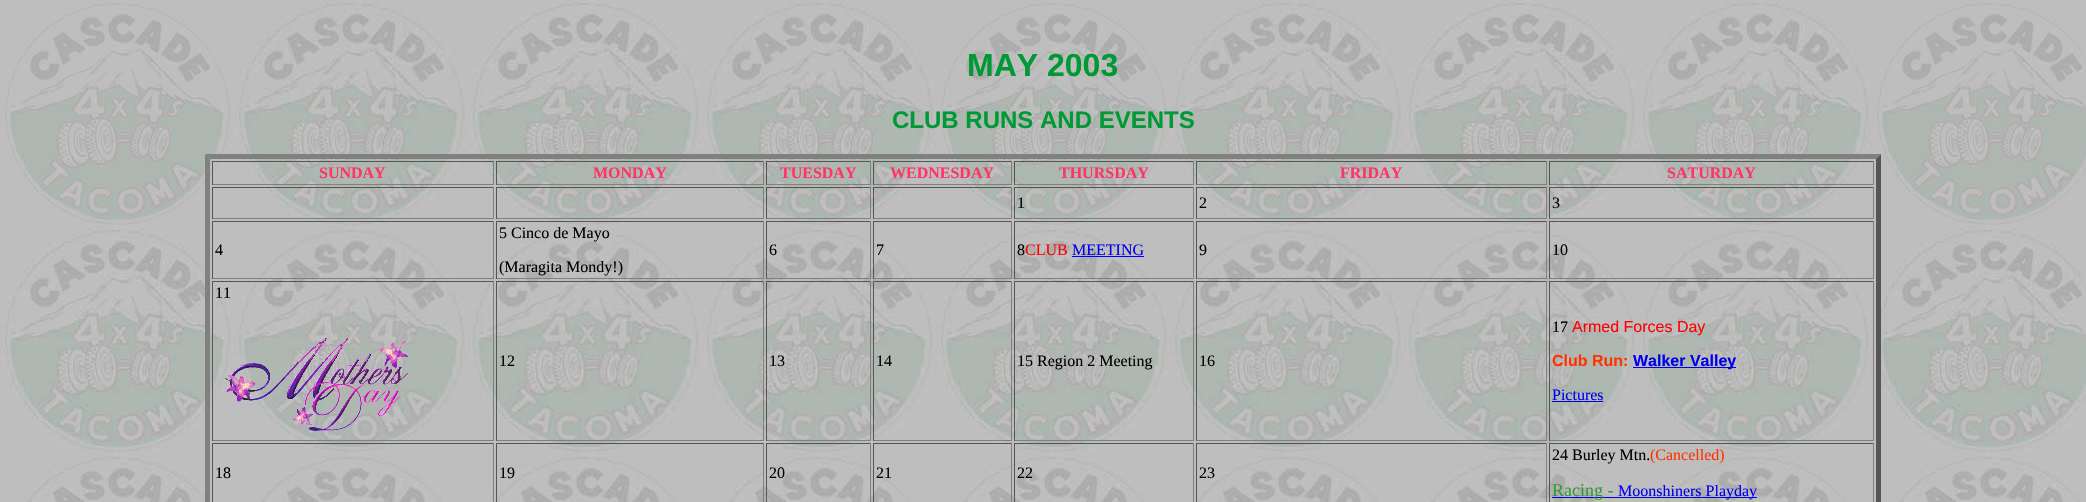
void draw(SkCanvas* canvas) {
    SkPaint paint;
    paint.setAntiAlias(true);
    canvas->clear(0xFFFFFFFF);
    canvas->drawImageRect(SkImages::DeferredFromEncodedData(SkData::MakeFromFileName("img1.png")), SkRect::MakeXYWH(0, 0, 2086, 502), SkSamplingOptions());
    SkFont font1(fontMgr->matchFamilyStyle("Liberation Sans", SkFontStyle::Bold()), 32);
    font1.setSubpixel(true);
    paint.setColor(0xFF009933);
    canvas->drawString("MAY 2003", 967, 76, font1, paint);
    SkFont font2(fontMgr->matchFamilyStyle("Liberation Sans", SkFontStyle::Bold()), 24);
    font2.setSubpixel(true);
    canvas->drawString("CLUB RUNS AND EVENTS", 892, 128, font2, paint);
    paint.setColor(0xFF808080);
    canvas->drawPath(SkPathBuilder().moveTo(205, 154).lineTo(1881, 154).lineTo(1876, 159).lineTo(210, 159).close().detach(), paint);
    paint.setColor(0xFF555555);
    canvas->drawPath(SkPathBuilder().moveTo(1881, 154).lineTo(1881, 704).lineTo(1876, 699).lineTo(1876, 159).close().detach(), paint);
    paint.setColor(0xFF808080);
    canvas->drawPath(SkPathBuilder().moveTo(205, 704).lineTo(205, 154).lineTo(210, 159).lineTo(210, 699).close().detach(), paint);
    paint.setColor(0xFF555555);
    canvas->drawRect(SkRect::MakeXYWH(212, 161, 282, 1), paint);
    paint.setColor(0xFF808080);
    canvas->drawRect(SkRect::MakeXYWH(493, 161, 1, 24), paint);
    canvas->drawRect(SkRect::MakeXYWH(212, 184, 282, 1), paint);
    paint.setColor(0xFF555555);
    canvas->drawRect(SkRect::MakeXYWH(212, 161, 1, 24), paint);
    SkFont font3(fontMgr->matchFamilyStyle("Liberation Serif", SkFontStyle::Bold()), 16);
    font3.setSubpixel(true);
    paint.setColor(0xFFFF3366);
    canvas->drawString("SUNDAY", 319, 178, font3, paint);
    paint.setColor(0xFF555555);
    canvas->drawRect(SkRect::MakeXYWH(496, 161, 268, 1), paint);
    paint.setColor(0xFF808080);
    canvas->drawRect(SkRect::MakeXYWH(763, 161, 1, 24), paint);
    canvas->drawRect(SkRect::MakeXYWH(496, 184, 268, 1), paint);
    paint.setColor(0xFF555555);
    canvas->drawRect(SkRect::MakeXYWH(496, 161, 1, 24), paint);
    paint.setColor(0xFFFF3366);
    canvas->drawString("MONDAY", 593, 178, font3, paint);
    paint.setColor(0xFF555555);
    canvas->drawRect(SkRect::MakeXYWH(766, 161, 105, 1), paint);
    paint.setColor(0xFF808080);
    canvas->drawRect(SkRect::MakeXYWH(870, 161, 1, 24), paint);
    canvas->drawRect(SkRect::MakeXYWH(766, 184, 105, 1), paint);
    paint.setColor(0xFF555555);
    canvas->drawRect(SkRect::MakeXYWH(766, 161, 1, 24), paint);
    paint.setColor(0xFFFF3366);
    canvas->drawString("TUESDAY", 780, 178, font3, paint);
    paint.setColor(0xFF555555);
    canvas->drawRect(SkRect::MakeXYWH(873, 161, 139, 1), paint);
    paint.setColor(0xFF808080);
    canvas->drawRect(SkRect::MakeXYWH(1011, 161, 1, 24), paint);
    canvas->drawRect(SkRect::MakeXYWH(873, 184, 139, 1), paint);
    paint.setColor(0xFF555555);
    canvas->drawRect(SkRect::MakeXYWH(873, 161, 1, 24), paint);
    paint.setColor(0xFFFF3366);
    canvas->drawString("WEDNESDAY", 890, 178, font3, paint);
    paint.setColor(0xFF555555);
    canvas->drawRect(SkRect::MakeXYWH(1014, 161, 180, 1), paint);
    paint.setColor(0xFF808080);
    canvas->drawRect(SkRect::MakeXYWH(1193, 161, 1, 24), paint);
    canvas->drawRect(SkRect::MakeXYWH(1014, 184, 180, 1), paint);
    paint.setColor(0xFF555555);
    canvas->drawRect(SkRect::MakeXYWH(1014, 161, 1, 24), paint);
    paint.setColor(0xFFFF3366);
    canvas->drawString("THURSDAY", 1059, 178, font3, paint);
    paint.setColor(0xFF555555);
    canvas->drawRect(SkRect::MakeXYWH(1196, 161, 351, 1), paint);
    paint.setColor(0xFF808080);
    canvas->drawRect(SkRect::MakeXYWH(1546, 161, 1, 24), paint);
    canvas->drawRect(SkRect::MakeXYWH(1196, 184, 351, 1), paint);
    paint.setColor(0xFF555555);
    canvas->drawRect(SkRect::MakeXYWH(1196, 161, 1, 24), paint);
    paint.setColor(0xFFFF3366);
    canvas->drawString("FRIDAY", 1340, 178, font3, paint);
    paint.setColor(0xFF555555);
    canvas->drawRect(SkRect::MakeXYWH(1549, 161, 325, 1), paint);
    paint.setColor(0xFF808080);
    canvas->drawRect(SkRect::MakeXYWH(1873, 161, 1, 24), paint);
    canvas->drawRect(SkRect::MakeXYWH(1549, 184, 325, 1), paint);
    paint.setColor(0xFF555555);
    canvas->drawRect(SkRect::MakeXYWH(1549, 161, 1, 24), paint);
    paint.setColor(0xFFFF3366);
    canvas->drawString("SATURDAY", 1667, 178, font3, paint);
    paint.setColor(0xFF555555);
    canvas->drawRect(SkRect::MakeXYWH(212, 187, 282, 1), paint);
    paint.setColor(0xFF808080);
    canvas->drawRect(SkRect::MakeXYWH(493, 187, 1, 32), paint);
    canvas->drawRect(SkRect::MakeXYWH(212, 218, 282, 1), paint);
    paint.setColor(0xFF555555);
    canvas->drawRect(SkRect::MakeXYWH(212, 187, 1, 32), paint);
    canvas->drawRect(SkRect::MakeXYWH(496, 187, 268, 1), paint);
    paint.setColor(0xFF808080);
    canvas->drawRect(SkRect::MakeXYWH(763, 187, 1, 32), paint);
    canvas->drawRect(SkRect::MakeXYWH(496, 218, 268, 1), paint);
    paint.setColor(0xFF555555);
    canvas->drawRect(SkRect::MakeXYWH(496, 187, 1, 32), paint);
    canvas->drawRect(SkRect::MakeXYWH(766, 187, 105, 1), paint);
    paint.setColor(0xFF808080);
    canvas->drawRect(SkRect::MakeXYWH(870, 187, 1, 32), paint);
    canvas->drawRect(SkRect::MakeXYWH(766, 218, 105, 1), paint);
    paint.setColor(0xFF555555);
    canvas->drawRect(SkRect::MakeXYWH(766, 187, 1, 32), paint);
    canvas->drawRect(SkRect::MakeXYWH(873, 187, 139, 1), paint);
    paint.setColor(0xFF808080);
    canvas->drawRect(SkRect::MakeXYWH(1011, 187, 1, 32), paint);
    canvas->drawRect(SkRect::MakeXYWH(873, 218, 139, 1), paint);
    paint.setColor(0xFF555555);
    canvas->drawRect(SkRect::MakeXYWH(873, 187, 1, 32), paint);
    canvas->drawRect(SkRect::MakeXYWH(1014, 187, 180, 1), paint);
    paint.setColor(0xFF808080);
    canvas->drawRect(SkRect::MakeXYWH(1193, 187, 1, 32), paint);
    canvas->drawRect(SkRect::MakeXYWH(1014, 218, 180, 1), paint);
    paint.setColor(0xFF555555);
    canvas->drawRect(SkRect::MakeXYWH(1014, 187, 1, 32), paint);
    SkFont font4(fontMgr->matchFamilyStyle("Liberation Serif", SkFontStyle::Normal()), 16);
    font4.setSubpixel(true);
    paint.setColor(0xFF000000);
    canvas->drawString("1", 1017, 208, font4, paint);
    paint.setColor(0xFF555555);
    canvas->drawRect(SkRect::MakeXYWH(1196, 187, 351, 1), paint);
    paint.setColor(0xFF808080);
    canvas->drawRect(SkRect::MakeXYWH(1546, 187, 1, 32), paint);
    canvas->drawRect(SkRect::MakeXYWH(1196, 218, 351, 1), paint);
    paint.setColor(0xFF555555);
    canvas->drawRect(SkRect::MakeXYWH(1196, 187, 1, 32), paint);
    paint.setColor(0xFF000000);
    canvas->drawString("2", 1199, 208, font4, paint);
    paint.setColor(0xFF555555);
    canvas->drawRect(SkRect::MakeXYWH(1549, 187, 325, 1), paint);
    paint.setColor(0xFF808080);
    canvas->drawRect(SkRect::MakeXYWH(1873, 187, 1, 32), paint);
    canvas->drawRect(SkRect::MakeXYWH(1549, 218, 325, 1), paint);
    paint.setColor(0xFF555555);
    canvas->drawRect(SkRect::MakeXYWH(1549, 187, 1, 32), paint);
    paint.setColor(0xFF000000);
    canvas->drawString("3", 1552, 208, font4, paint);
    paint.setColor(0xFF555555);
    canvas->drawRect(SkRect::MakeXYWH(212, 221, 282, 1), paint);
    paint.setColor(0xFF808080);
    canvas->drawRect(SkRect::MakeXYWH(493, 221, 1, 58), paint);
    canvas->drawRect(SkRect::MakeXYWH(212, 278, 282, 1), paint);
    paint.setColor(0xFF555555);
    canvas->drawRect(SkRect::MakeXYWH(212, 221, 1, 58), paint);
    paint.setColor(0xFF000000);
    canvas->drawString("4", 215, 255, font4, paint);
    paint.setColor(0xFF555555);
    canvas->drawRect(SkRect::MakeXYWH(496, 221, 268, 1), paint);
    paint.setColor(0xFF808080);
    canvas->drawRect(SkRect::MakeXYWH(763, 221, 1, 58), paint);
    canvas->drawRect(SkRect::MakeXYWH(496, 278, 268, 1), paint);
    paint.setColor(0xFF555555);
    canvas->drawRect(SkRect::MakeXYWH(496, 221, 1, 58), paint);
    paint.setColor(0xFF000000);
    canvas->drawString("5 Cinco de Mayo", 499, 238, font4, paint);
    canvas->drawString("(Maragita Mondy!)", 499, 272, font4, paint);
    paint.setColor(0xFF555555);
    canvas->drawRect(SkRect::MakeXYWH(766, 221, 105, 1), paint);
    paint.setColor(0xFF808080);
    canvas->drawRect(SkRect::MakeXYWH(870, 221, 1, 58), paint);
    canvas->drawRect(SkRect::MakeXYWH(766, 278, 105, 1), paint);
    paint.setColor(0xFF555555);
    canvas->drawRect(SkRect::MakeXYWH(766, 221, 1, 58), paint);
    paint.setColor(0xFF000000);
    canvas->drawString("6", 769, 255, font4, paint);
    paint.setColor(0xFF555555);
    canvas->drawRect(SkRect::MakeXYWH(873, 221, 139, 1), paint);
    paint.setColor(0xFF808080);
    canvas->drawRect(SkRect::MakeXYWH(1011, 221, 1, 58), paint);
    canvas->drawRect(SkRect::MakeXYWH(873, 278, 139, 1), paint);
    paint.setColor(0xFF555555);
    canvas->drawRect(SkRect::MakeXYWH(873, 221, 1, 58), paint);
    paint.setColor(0xFF000000);
    canvas->drawString("7", 876, 255, font4, paint);
    paint.setColor(0xFF555555);
    canvas->drawRect(SkRect::MakeXYWH(1014, 221, 180, 1), paint);
    paint.setColor(0xFF808080);
    canvas->drawRect(SkRect::MakeXYWH(1193, 221, 1, 58), paint);
    canvas->drawRect(SkRect::MakeXYWH(1014, 278, 180, 1), paint);
    paint.setColor(0xFF555555);
    canvas->drawRect(SkRect::MakeXYWH(1014, 221, 1, 58), paint);
    paint.setColor(0xFF000000);
    canvas->drawString("8", 1017, 255, font4, paint);
    paint.setColor(0xFFFF0000);
    canvas->drawString("CLUB", 1025, 255, font4, paint);
    paint.setColor(0xFF0000EE);
    canvas->drawString("MEETING", 1072, 255, font4, paint);
    canvas->drawRect(SkRect::MakeXYWH(1072, 256, 72, 1), paint);
    paint.setColor(0xFF555555);
    canvas->drawRect(SkRect::MakeXYWH(1196, 221, 351, 1), paint);
    paint.setColor(0xFF808080);
    canvas->drawRect(SkRect::MakeXYWH(1546, 221, 1, 58), paint);
    canvas->drawRect(SkRect::MakeXYWH(1196, 278, 351, 1), paint);
    paint.setColor(0xFF555555);
    canvas->drawRect(SkRect::MakeXYWH(1196, 221, 1, 58), paint);
    paint.setColor(0xFF000000);
    canvas->drawString("9", 1199, 255, font4, paint);
    paint.setColor(0xFF555555);
    canvas->drawRect(SkRect::MakeXYWH(1549, 221, 325, 1), paint);
    paint.setColor(0xFF808080);
    canvas->drawRect(SkRect::MakeXYWH(1873, 221, 1, 58), paint);
    canvas->drawRect(SkRect::MakeXYWH(1549, 278, 325, 1), paint);
    paint.setColor(0xFF555555);
    canvas->drawRect(SkRect::MakeXYWH(1549, 221, 1, 58), paint);
    paint.setColor(0xFF000000);
    canvas->drawString("10", 1552, 255, font4, paint);
    paint.setColor(0xFF555555);
    canvas->drawRect(SkRect::MakeXYWH(212, 281, 282, 1), paint);
    paint.setColor(0xFF808080);
    canvas->drawRect(SkRect::MakeXYWH(493, 281, 1, 160), paint);
    canvas->drawRect(SkRect::MakeXYWH(212, 440, 282, 1), paint);
    paint.setColor(0xFF555555);
    canvas->drawRect(SkRect::MakeXYWH(212, 281, 1, 160), paint);
    paint.setColor(0xFF000000);
    canvas->drawString("11", 215, 298, font4, paint);
    canvas->drawImageRect(SkImages::DeferredFromEncodedData(SkData::MakeFromFileName("img2.png")), SkRect::MakeXYWH(225, 338, 183, 93), SkSamplingOptions());
    paint.setColor(0xFF555555);
    canvas->drawRect(SkRect::MakeXYWH(496, 281, 268, 1), paint);
    paint.setColor(0xFF808080);
    canvas->drawRect(SkRect::MakeXYWH(763, 281, 1, 160), paint);
    canvas->drawRect(SkRect::MakeXYWH(496, 440, 268, 1), paint);
    paint.setColor(0xFF555555);
    canvas->drawRect(SkRect::MakeXYWH(496, 281, 1, 160), paint);
    paint.setColor(0xFF000000);
    canvas->drawString("12", 499, 366, font4, paint);
    paint.setColor(0xFF555555);
    canvas->drawRect(SkRect::MakeXYWH(766, 281, 105, 1), paint);
    paint.setColor(0xFF808080);
    canvas->drawRect(SkRect::MakeXYWH(870, 281, 1, 160), paint);
    canvas->drawRect(SkRect::MakeXYWH(766, 440, 105, 1), paint);
    paint.setColor(0xFF555555);
    canvas->drawRect(SkRect::MakeXYWH(766, 281, 1, 160), paint);
    paint.setColor(0xFF000000);
    canvas->drawString("13", 769, 366, font4, paint);
    paint.setColor(0xFF555555);
    canvas->drawRect(SkRect::MakeXYWH(873, 281, 139, 1), paint);
    paint.setColor(0xFF808080);
    canvas->drawRect(SkRect::MakeXYWH(1011, 281, 1, 160), paint);
    canvas->drawRect(SkRect::MakeXYWH(873, 440, 139, 1), paint);
    paint.setColor(0xFF555555);
    canvas->drawRect(SkRect::MakeXYWH(873, 281, 1, 160), paint);
    paint.setColor(0xFF000000);
    canvas->drawString("14", 876, 366, font4, paint);
    paint.setColor(0xFF555555);
    canvas->drawRect(SkRect::MakeXYWH(1014, 281, 180, 1), paint);
    paint.setColor(0xFF808080);
    canvas->drawRect(SkRect::MakeXYWH(1193, 281, 1, 160), paint);
    canvas->drawRect(SkRect::MakeXYWH(1014, 440, 180, 1), paint);
    paint.setColor(0xFF555555);
    canvas->drawRect(SkRect::MakeXYWH(1014, 281, 1, 160), paint);
    paint.setColor(0xFF000000);
    canvas->drawString("15 Region 2 Meeting", 1017, 366, font4, paint);
    paint.setColor(0xFF555555);
    canvas->drawRect(SkRect::MakeXYWH(1196, 281, 351, 1), paint);
    paint.setColor(0xFF808080);
    canvas->drawRect(SkRect::MakeXYWH(1546, 281, 1, 160), paint);
    canvas->drawRect(SkRect::MakeXYWH(1196, 440, 351, 1), paint);
    paint.setColor(0xFF555555);
    canvas->drawRect(SkRect::MakeXYWH(1196, 281, 1, 160), paint);
    paint.setColor(0xFF000000);
    canvas->drawString("16", 1199, 366, font4, paint);
    paint.setColor(0xFF555555);
    canvas->drawRect(SkRect::MakeXYWH(1549, 281, 325, 1), paint);
    paint.setColor(0xFF808080);
    canvas->drawRect(SkRect::MakeXYWH(1873, 281, 1, 160), paint);
    canvas->drawRect(SkRect::MakeXYWH(1549, 440, 325, 1), paint);
    paint.setColor(0xFF555555);
    canvas->drawRect(SkRect::MakeXYWH(1549, 281, 1, 160), paint);
    paint.setColor(0xFF000000);
    canvas->drawString("17", 1552, 332, font4, paint);
    SkFont font5(fontMgr->matchFamilyStyle("Liberation Sans", SkFontStyle::Normal()), 16);
    font5.setSubpixel(true);
    paint.setColor(0xFFFF0000);
    canvas->drawString("Armed Forces Day", 1572, 332, font5, paint);
    SkFont font6(fontMgr->matchFamilyStyle("Liberation Sans", SkFontStyle::Bold()), 16);
    font6.setSubpixel(true);
    paint.setColor(0xFFFF3300);
    canvas->drawString("Club Run:", 1552, 366, font6, paint);
    paint.setColor(0xFF0000EE);
    canvas->drawRect(SkRect::MakeXYWH(1633, 367, 103, 1), paint);
    canvas->drawString("Walker Valley", 1633, 366, font6, paint);
    canvas->drawString("Pictures", 1552, 400, font4, paint);
    canvas->drawRect(SkRect::MakeXYWH(1552, 401, 51, 1), paint);
    paint.setColor(0xFF555555);
    canvas->drawRect(SkRect::MakeXYWH(212, 443, 282, 1), paint);
    paint.setColor(0xFF808080);
    canvas->drawRect(SkRect::MakeXYWH(493, 443, 1, 59), paint);
    paint.setColor(0xFF555555);
    canvas->drawRect(SkRect::MakeXYWH(212, 443, 1, 59), paint);
    paint.setColor(0xFF000000);
    canvas->drawString("18", 215, 478, font4, paint);
    paint.setColor(0xFF555555);
    canvas->drawRect(SkRect::MakeXYWH(496, 443, 268, 1), paint);
    paint.setColor(0xFF808080);
    canvas->drawRect(SkRect::MakeXYWH(763, 443, 1, 59), paint);
    paint.setColor(0xFF555555);
    canvas->drawRect(SkRect::MakeXYWH(496, 443, 1, 59), paint);
    paint.setColor(0xFF000000);
    canvas->drawString("19", 499, 478, font4, paint);
    paint.setColor(0xFF555555);
    canvas->drawRect(SkRect::MakeXYWH(766, 443, 105, 1), paint);
    paint.setColor(0xFF808080);
    canvas->drawRect(SkRect::MakeXYWH(870, 443, 1, 59), paint);
    paint.setColor(0xFF555555);
    canvas->drawRect(SkRect::MakeXYWH(766, 443, 1, 59), paint);
    paint.setColor(0xFF000000);
    canvas->drawString("20", 769, 478, font4, paint);
    paint.setColor(0xFF555555);
    canvas->drawRect(SkRect::MakeXYWH(873, 443, 139, 1), paint);
    paint.setColor(0xFF808080);
    canvas->drawRect(SkRect::MakeXYWH(1011, 443, 1, 59), paint);
    paint.setColor(0xFF555555);
    canvas->drawRect(SkRect::MakeXYWH(873, 443, 1, 59), paint);
    paint.setColor(0xFF000000);
    canvas->drawString("21", 876, 478, font4, paint);
    paint.setColor(0xFF555555);
    canvas->drawRect(SkRect::MakeXYWH(1014, 443, 180, 1), paint);
    paint.setColor(0xFF808080);
    canvas->drawRect(SkRect::MakeXYWH(1193, 443, 1, 59), paint);
    paint.setColor(0xFF555555);
    canvas->drawRect(SkRect::MakeXYWH(1014, 443, 1, 59), paint);
    paint.setColor(0xFF000000);
    canvas->drawString("22", 1017, 478, font4, paint);
    paint.setColor(0xFF555555);
    canvas->drawRect(SkRect::MakeXYWH(1196, 443, 351, 1), paint);
    paint.setColor(0xFF808080);
    canvas->drawRect(SkRect::MakeXYWH(1546, 443, 1, 59), paint);
    paint.setColor(0xFF555555);
    canvas->drawRect(SkRect::MakeXYWH(1196, 443, 1, 59), paint);
    paint.setColor(0xFF000000);
    canvas->drawString("23", 1199, 478, font4, paint);
    paint.setColor(0xFF555555);
    canvas->drawRect(SkRect::MakeXYWH(1549, 443, 325, 1), paint);
    paint.setColor(0xFF808080);
    canvas->drawRect(SkRect::MakeXYWH(1873, 443, 1, 59), paint);
    paint.setColor(0xFF555555);
    canvas->drawRect(SkRect::MakeXYWH(1549, 443, 1, 59), paint);
    paint.setColor(0xFF000000);
    canvas->drawString("24 Burley Mtn.", 1552, 460, font4, paint);
    paint.setColor(0xFFFF3300);
    canvas->drawString("(Cancelled)", 1650, 460, font4, paint);
    paint.setColor(0xFF0000EE);
    canvas->drawRect(SkRect::MakeXYWH(1552, 497, 205, 1), paint);
    SkFont font7(fontMgr->matchFamilyStyle("Liberation Serif", SkFontStyle::Normal()), 18);
    font7.setSubpixel(true);
    paint.setColor(0xFF339933);
    canvas->drawString("Racing -", 1552, 496, font7, paint);
    paint.setColor(0xFF0000EE);
    canvas->drawString("Moonshiners Playday", 1618, 496, font4, paint);
}
